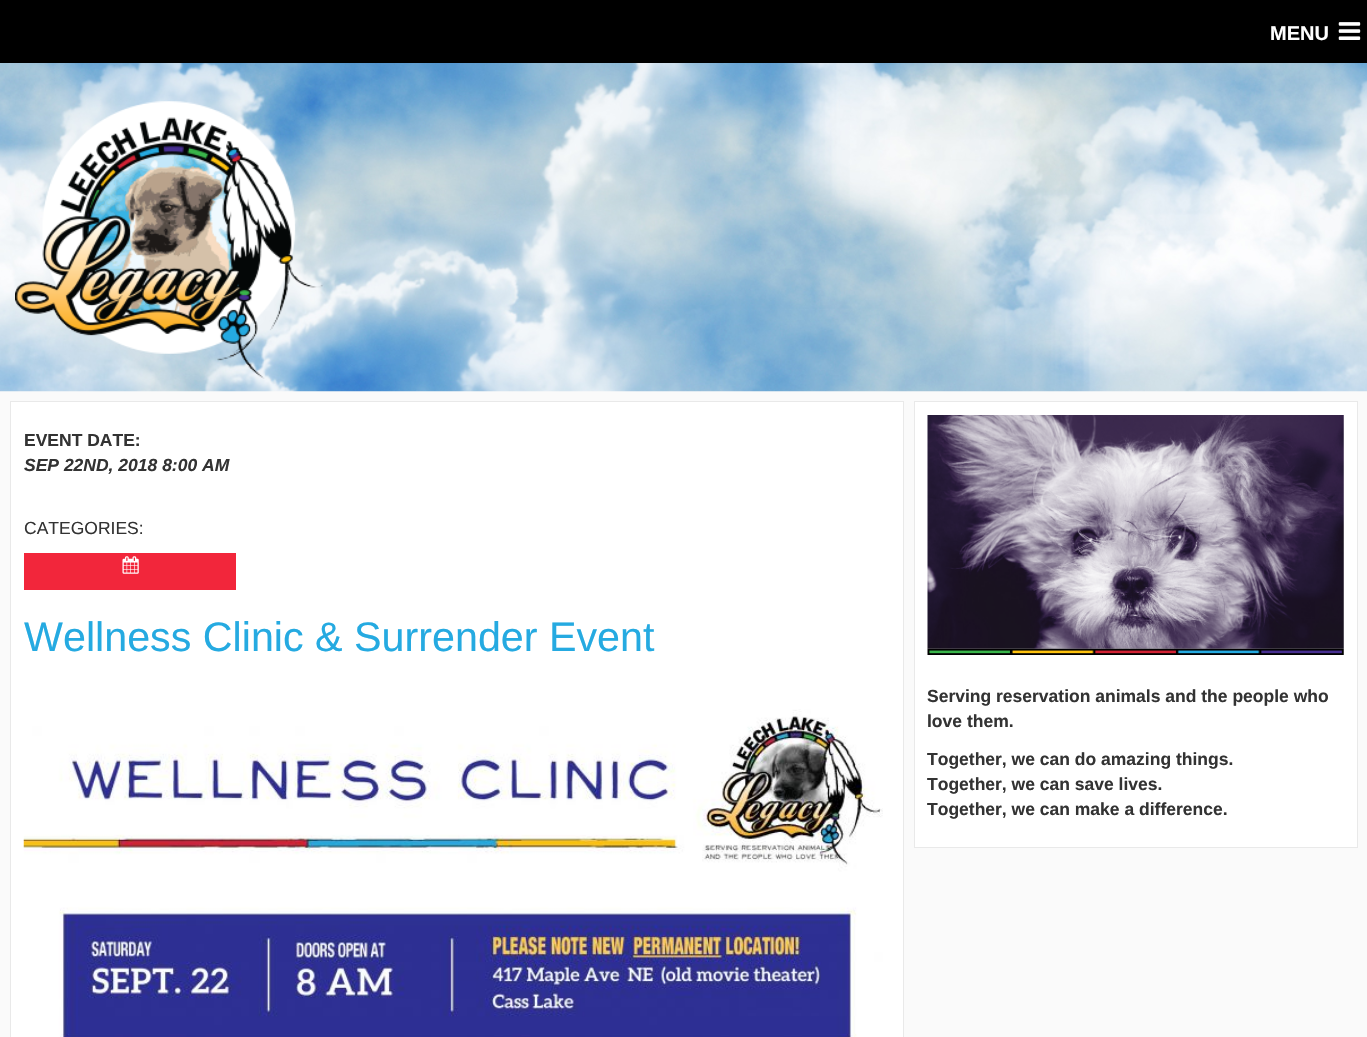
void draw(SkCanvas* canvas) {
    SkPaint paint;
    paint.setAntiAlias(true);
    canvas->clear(0xFFFAFAFA);
    canvas->drawImageRect(SkImages::DeferredFromEncodedData(SkData::MakeFromFileName("img1.png")), SkRect::MakeXYWH(0, 63, 1367, 329), SkSamplingOptions());
    paint.setColor(0xFF000000);
    canvas->drawRect(SkRect::MakeXYWH(0, 0, 1367, 63), paint);
    SkFont font1(fontMgr->matchFamilyStyle("Liberation Sans", SkFontStyle::Bold()), 20);
    font1.setSubpixel(true);
    paint.setColor(0xFFFFFFFF);
    canvas->drawString("MENU", 1270, 40, font1, paint);
    canvas->drawImageRect(SkImages::DeferredFromEncodedData(SkData::MakeFromFileName("img2.png")), SkRect::MakeXYWH(1338, 22, 23, 18), SkSamplingOptions());
    canvas->drawImageRect(SkImages::DeferredFromEncodedData(SkData::MakeFromFileName("img3.png")), SkRect::MakeXYWH(15, 101, 308, 278), SkSamplingOptions());
    canvas->drawRect(SkRect::MakeXYWH(10.5f, 401.5f, 893, 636), paint);
    paint.setStyle(SkPaint::kStroke_Style);
    paint.setStrokeWidth(1);
    paint.setColor(0xFFE9E9E9);
    canvas->drawRect(SkRect::MakeXYWH(10.5f, 401.5f, 893, 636), paint);
    SkFont font2(fontMgr->matchFamilyStyle("Liberation Sans", SkFontStyle::Bold()), 17.5f);
    font2.setSubpixel(true);
    paint.setStyle(SkPaint::kFill_Style);
    paint.setColor(0xFF333333);
    canvas->drawString("EVENT DATE:", 24, 446, font2, paint);
    SkFont font3(fontMgr->matchFamilyStyle("Liberation Sans", SkFontStyle::BoldItalic()), 17.5f);
    font3.setSubpixel(true);
    canvas->drawString("SEP 22ND, 2018 8:00 AM", 24, 471, font3, paint);
    SkFont font4(fontMgr->matchFamilyStyle("Liberation Sans", SkFontStyle::Normal()), 17.5f);
    font4.setSubpixel(true);
    canvas->drawString("CATEGORIES:", 24, 534, font4, paint);
    paint.setColor(0xFFF2263B);
    canvas->drawRect(SkRect::MakeXYWH(24, 553, 212, 37), paint);
    canvas->drawImageRect(SkImages::DeferredFromEncodedData(SkData::MakeFromFileName("img4.png")), SkRect::MakeXYWH(122, 556, 17, 18), SkSamplingOptions());
    SkFont font5(fontMgr->matchFamilyStyle("Liberation Sans", SkFontStyle::Normal()), 41.25f);
    font5.setSubpixel(true);
    paint.setColor(0xFF25AAE1);
    canvas->drawString("Wellness Clinic & Surrender Event", 24, 651, font5, paint);
    canvas->drawImageRect(SkImages::DeferredFromEncodedData(SkData::MakeFromFileName("img5.png")), SkRect::MakeXYWH(23, 709, 860, 328), SkSamplingOptions());
    paint.setColor(0xFFFFFFFF);
    canvas->drawRect(SkRect::MakeXYWH(914.5f, 401.5f, 443, 446), paint);
    paint.setStyle(SkPaint::kStroke_Style);
    paint.setColor(0xFFE9E9E9);
    canvas->drawRect(SkRect::MakeXYWH(914.5f, 401.5f, 443, 446), paint);
    canvas->drawImageRect(SkImages::DeferredFromEncodedData(SkData::MakeFromFileName("img6.png")), SkRect::MakeXYWH(927, 415, 417, 234), SkSamplingOptions());
    canvas->drawImageRect(SkImages::DeferredFromEncodedData(SkData::MakeFromFileName("img7.png")), SkRect::MakeXYWH(927, 648, 417, 7), SkSamplingOptions());
    paint.setStyle(SkPaint::kFill_Style);
    paint.setColor(0xFF333333);
    canvas->drawString("Serving reservation animals and the people who", 927, 702, font2, paint);
    canvas->drawString("love them.", 927, 727, font2, paint);
    canvas->drawString("Together, we can do amazing things.", 927, 765, font2, paint);
    canvas->drawString("Together, we can save lives.", 927, 790, font2, paint);
    canvas->drawString("Together, we can make a difference.", 927, 815, font2, paint);
}
